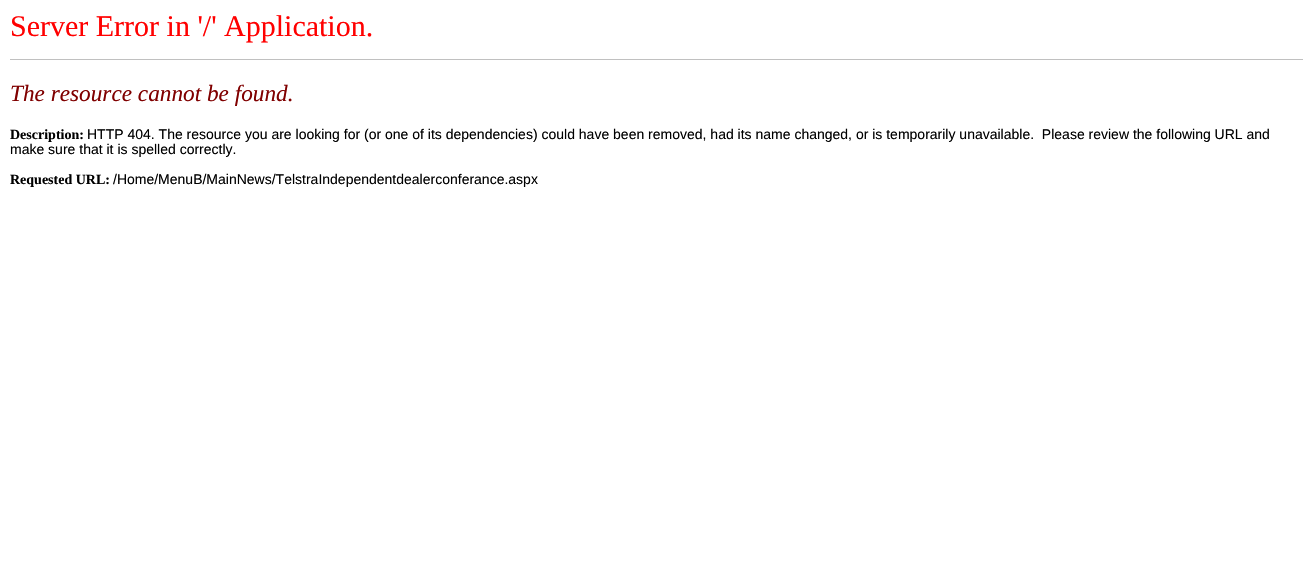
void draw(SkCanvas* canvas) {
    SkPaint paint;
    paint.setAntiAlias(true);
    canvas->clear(0xFFFFFFFF);
    SkFont font1(fontMgr->matchFamilyStyle("Liberation Serif", SkFontStyle::Normal()), 30);
    font1.setSubpixel(true);
    paint.setColor(0xFFFF0000);
    canvas->drawString("Server Error in '/' Application.", 10, 36, font1, paint);
    paint.setColor(0xFFC0C0C0);
    canvas->drawRect(SkRect::MakeXYWH(10, 59, 1293, 1), paint);
    SkFont font2(fontMgr->matchFamilyStyle("Liberation Serif", SkFontStyle::Italic()), 23.25f);
    font2.setSubpixel(true);
    paint.setColor(0xFF800000);
    canvas->drawString("The resource cannot be found.", 10, 101, font2, paint);
    SkFont font3(fontMgr->matchFamilyStyle("Liberation Serif", SkFontStyle::Bold()), 14);
    font3.setSubpixel(true);
    paint.setColor(0xFF000000);
    canvas->drawString("Description:", 10, 139, font3, paint);
    SkFont font4(fontMgr->matchFamilyStyle("Liberation Sans", SkFontStyle::Normal()), 14);
    font4.setSubpixel(true);
    canvas->drawString("HTTP 404. The resource you are looking for (or one of its dependencies) could have been removed, had its name changed, or is temporarily unavailable.  Please review the following URL and", 87, 139, font4, paint);
    canvas->drawString("make sure that it is spelled correctly.", 10, 154, font4, paint);
    canvas->drawString("Requested URL:", 10, 184, font3, paint);
    canvas->drawString("/Home/MenuB/MainNews/TelstraIndependentdealerconferance.aspx", 113, 184, font4, paint);
}
